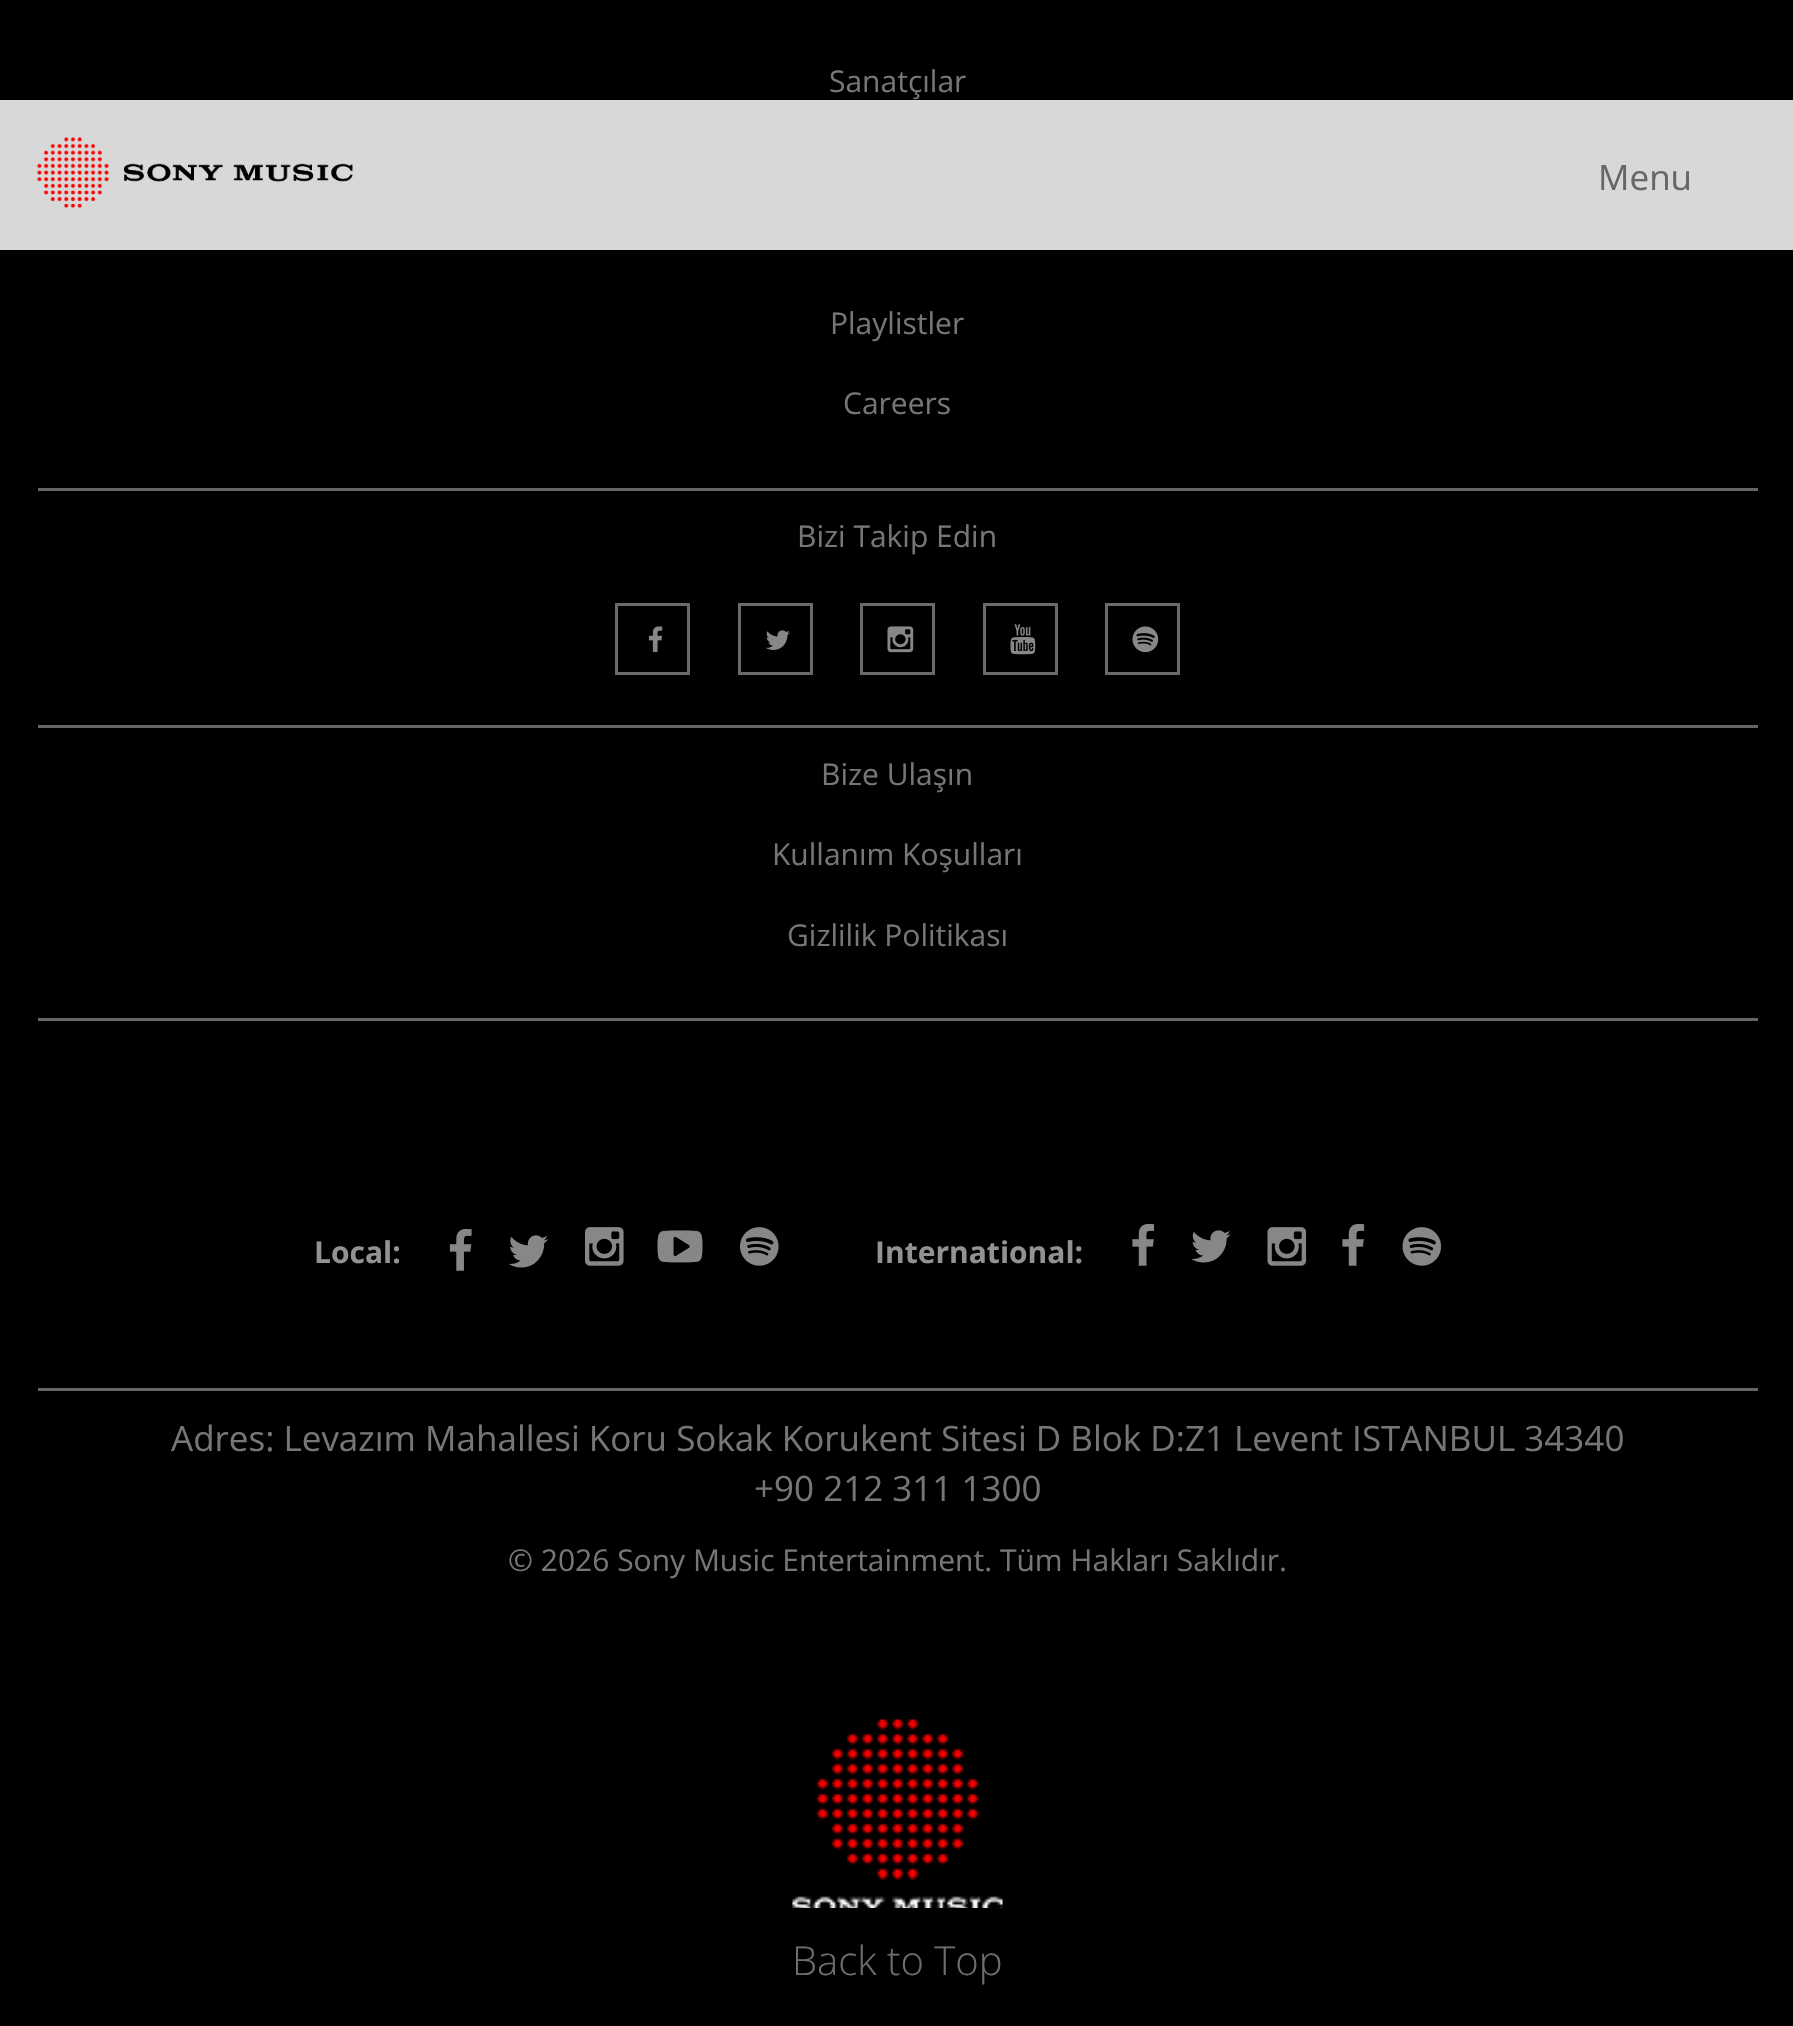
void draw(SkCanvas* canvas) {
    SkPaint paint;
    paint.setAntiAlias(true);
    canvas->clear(0xFF000000);
    paint.setColor(0xFF666666);
    canvas->drawRect(SkRect::MakeXYWH(38, 488, 1720, 3), paint);
    SkFont font1(fontMgr->matchFamilyStyle("Open Sans", SkFontStyle::Normal()), 30);
    font1.setSubpixel(true);
    paint.setColor(0xFF767676);
    canvas->drawString("Sanatçılar", 829, 92, font1, paint);
    canvas->drawString("Playlistler", 830, 334, font1, paint);
    canvas->drawString("Careers", 843, 414, font1, paint);
    paint.setColor(0xFF666666);
    canvas->drawRect(SkRect::MakeXYWH(38, 725, 1720, 3), paint);
    paint.setColor(0xFF767676);
    canvas->drawString("Bizi Takip Edin", 797, 547, font1, paint);
    paint.setStyle(SkPaint::kStroke_Style);
    paint.setStrokeWidth(3);
    paint.setColor(0xFF6A6A6A);
    canvas->drawRect(SkRect::MakeXYWH(616.5f, 604.5f, 72, 69), paint);
    canvas->drawImageRect(SkImages::DeferredFromEncodedData(SkData::MakeFromFileName("img1.png")), SkRect::MakeXYWH(648, 626, 15, 26), SkSamplingOptions());
    canvas->drawRect(SkRect::MakeXYWH(739.5f, 604.5f, 72, 69), paint);
    canvas->drawImageRect(SkImages::DeferredFromEncodedData(SkData::MakeFromFileName("img2.png")), SkRect::MakeXYWH(766, 630, 24, 20), SkSamplingOptions());
    canvas->drawRect(SkRect::MakeXYWH(861.5f, 604.5f, 72, 69), paint);
    canvas->drawImageRect(SkImages::DeferredFromEncodedData(SkData::MakeFromFileName("img3.png")), SkRect::MakeXYWH(887, 626, 27, 27), SkSamplingOptions());
    canvas->drawRect(SkRect::MakeXYWH(984.5f, 604.5f, 72, 69), paint);
    canvas->drawImageRect(SkImages::DeferredFromEncodedData(SkData::MakeFromFileName("img4.png")), SkRect::MakeXYWH(1010, 624, 26, 31), SkSamplingOptions());
    canvas->drawRect(SkRect::MakeXYWH(1106.5f, 604.5f, 72, 69), paint);
    canvas->drawImageRect(SkImages::DeferredFromEncodedData(SkData::MakeFromFileName("img5.png")), SkRect::MakeXYWH(1132, 626, 27, 27), SkSamplingOptions());
    paint.setStyle(SkPaint::kFill_Style);
    paint.setColor(0xFF666666);
    canvas->drawRect(SkRect::MakeXYWH(38, 1018, 1720, 3), paint);
    paint.setColor(0xFF767676);
    canvas->drawString("Bize Ulaşın", 821, 785, font1, paint);
    canvas->drawString("Kullanım Koşulları", 772, 865, font1, paint);
    canvas->drawString("Gizlilik Politikası", 787, 946, font1, paint);
    paint.setColor(0xFF666666);
    canvas->drawRect(SkRect::MakeXYWH(38, 1388, 1720, 3), paint);
    SkFont font2(fontMgr->matchFamilyStyle("Open Sans", SkFontStyle::Bold()), 30);
    font2.setSubpixel(true);
    paint.setColor(0xFF929292);
    canvas->drawString("Local:", 314, 1263, font2, paint);
    canvas->drawImageRect(SkImages::DeferredFromEncodedData(SkData::MakeFromFileName("img6.png")), SkRect::MakeXYWH(449, 1228, 23, 43), SkSamplingOptions());
    canvas->drawImageRect(SkImages::DeferredFromEncodedData(SkData::MakeFromFileName("img7.png")), SkRect::MakeXYWH(508, 1235, 40, 33), SkSamplingOptions());
    canvas->drawImageRect(SkImages::DeferredFromEncodedData(SkData::MakeFromFileName("img8.png")), SkRect::MakeXYWH(585, 1227, 39, 39), SkSamplingOptions());
    canvas->drawImageRect(SkImages::DeferredFromEncodedData(SkData::MakeFromFileName("img9.png")), SkRect::MakeXYWH(657, 1230, 46, 33), SkSamplingOptions());
    canvas->drawImageRect(SkImages::DeferredFromEncodedData(SkData::MakeFromFileName("img10.png")), SkRect::MakeXYWH(740, 1227, 39, 39), SkSamplingOptions());
    canvas->drawString("International:", 875, 1263, font2, paint);
    canvas->drawImageRect(SkImages::DeferredFromEncodedData(SkData::MakeFromFileName("img11.png")), SkRect::MakeXYWH(1132, 1223, 23, 43), SkSamplingOptions());
    canvas->drawImageRect(SkImages::DeferredFromEncodedData(SkData::MakeFromFileName("img12.png")), SkRect::MakeXYWH(1191, 1230, 40, 33), SkSamplingOptions());
    canvas->drawImageRect(SkImages::DeferredFromEncodedData(SkData::MakeFromFileName("img13.png")), SkRect::MakeXYWH(1267, 1227, 40, 39), SkSamplingOptions());
    canvas->drawImageRect(SkImages::DeferredFromEncodedData(SkData::MakeFromFileName("img11.png")), SkRect::MakeXYWH(1342, 1223, 23, 43), SkSamplingOptions());
    canvas->drawImageRect(SkImages::DeferredFromEncodedData(SkData::MakeFromFileName("img14.png")), SkRect::MakeXYWH(1402, 1227, 40, 39), SkSamplingOptions());
    SkFont font3(fontMgr->matchFamilyStyle("Open Sans", SkFontStyle::Normal()), 35);
    font3.setSubpixel(true);
    paint.setColor(0xFF767676);
    canvas->drawString("Adres: Levazım Mahallesi Koru Sokak Korukent Sitesi D Blok D:Z1 Levent ISTANBUL 34340", 171, 1451, font3, paint);
    canvas->drawString("+90 212 311 1300", 754, 1501, font3, paint);
    canvas->drawString("© 2026 Sony Music Entertainment. Tüm Hakları Saklıdır.", 508, 1571, font1, paint);
    canvas->drawImageRect(SkImages::DeferredFromEncodedData(SkData::MakeFromFileName("img15.png")), SkRect::MakeXYWH(792, 1719, 211, 189), SkSamplingOptions());
    paint.setColor(0xE6F0F0F0);
    canvas->drawRect(SkRect::MakeXYWH(0, 100, 1793, 150), paint);
    canvas->drawImageRect(SkImages::DeferredFromEncodedData(SkData::MakeFromFileName("img16.png")), SkRect::MakeXYWH(37, 137, 316, 71), SkSamplingOptions());
    paint.setColor(0xFF666666);
    canvas->drawString("Menu", 1598, 190, font3, paint);
    SkFont font4(fontMgr->matchFamilyStyle("Open Sans", SkFontStyle(300, SkFontStyle::kNormal_Width, SkFontStyle::kUpright_Slant)), 40);
    font4.setSubpixel(true);
    paint.setColor(0xFF6D6D6D);
    canvas->drawString("Back to Top", 792, 1975, font4, paint);
}
